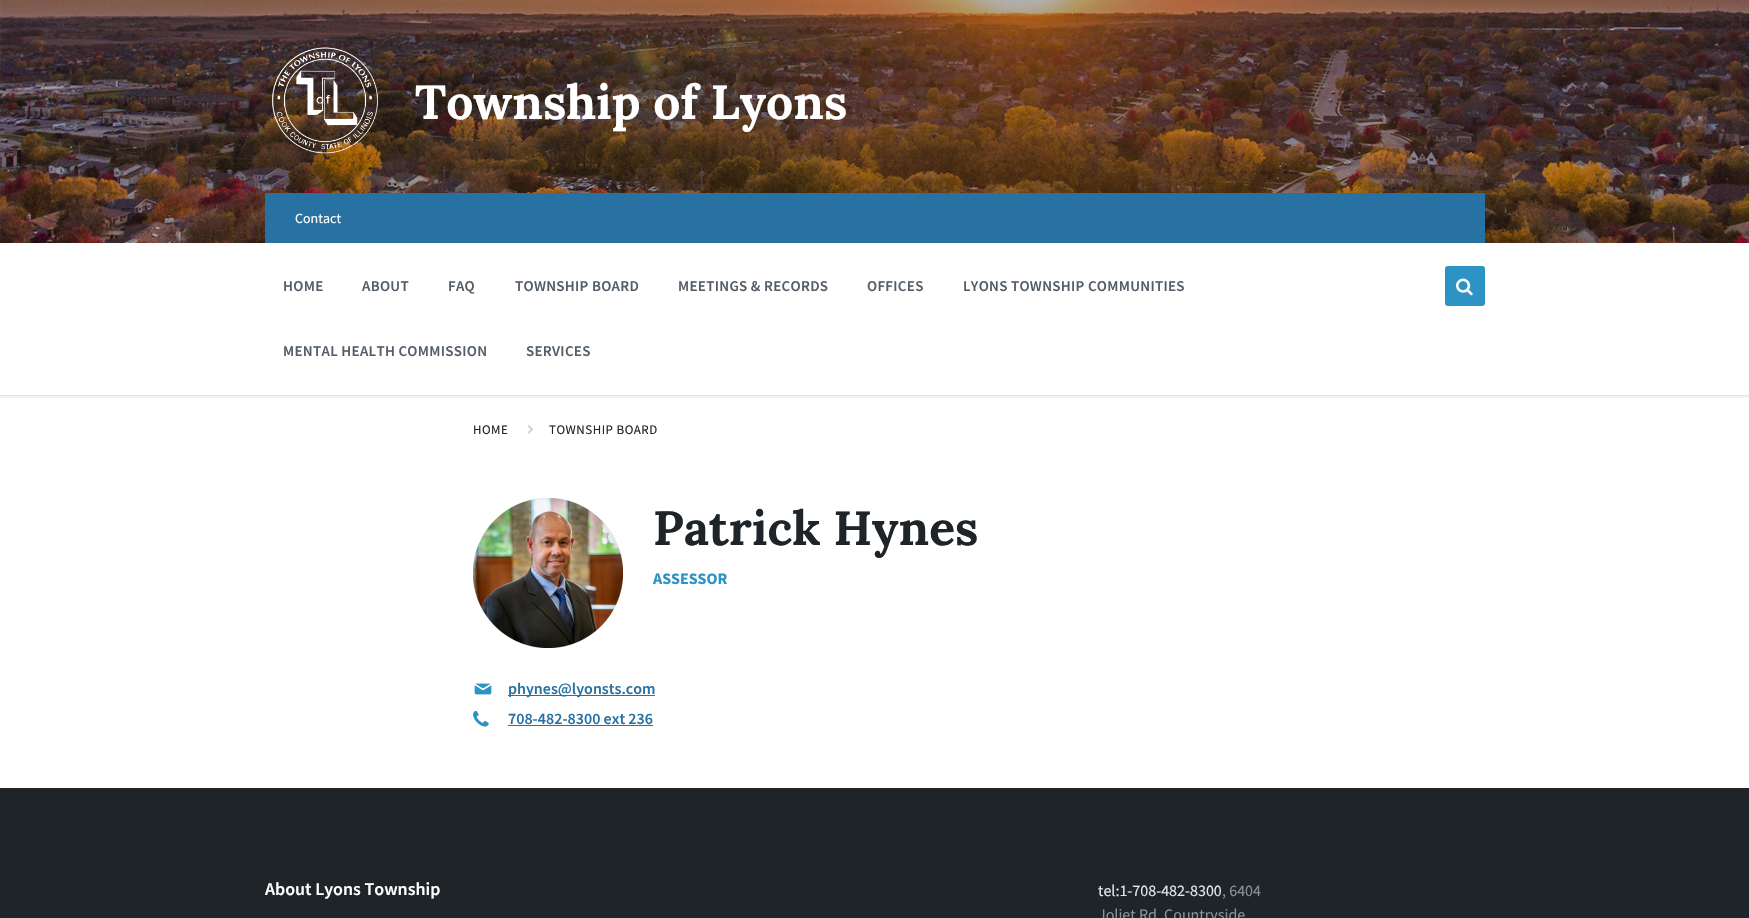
void draw(SkCanvas* canvas) {
    SkPaint paint;
    paint.setAntiAlias(true);
    auto spacedText = [&](const char* s, float x, float y, const SkFont& font, const SkPaint& ink, float letter, float word) {
        std::vector<SkGlyphID> glyphs(font.countText(s, strlen(s), SkTextEncoding::kUTF8));
        std::vector<float> xs(glyphs.size());
        font.textToGlyphs(s, strlen(s), SkTextEncoding::kUTF8, glyphs);
        font.getXPos(glyphs, xs, x);
        float extra = 0;
        for (size_t i = 0; i < glyphs.size(); i++) {
            xs[i] += extra;
            extra += letter + word * (glyphs[i] == font.unicharToGlyph(' '));
        }
        canvas->drawTextBlob(SkTextBlob::MakeFromPosHGlyphs(glyphs, xs, y, font), 0, 0, ink);
    };
    canvas->clear(0xFFFFFFFF);
    paint.setStyle(SkPaint::kStroke_Style);
    paint.setStrokeWidth(2);
    paint.setColor(0xFFF2F2F2);
    canvas->drawRect(SkRect::MakeXYWH(-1, 242, 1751, 155), paint);
    canvas->drawImageRect(SkImages::DeferredFromEncodedData(SkData::MakeFromFileName("img1.png")), SkRect::MakeXYWH(0, 0, 1749, 243), SkSamplingOptions());
    canvas->drawImageRect(SkImages::DeferredFromEncodedData(SkData::MakeFromFileName("img2.png")), SkRect::MakeXYWH(272, 47, 106, 107), SkSamplingOptions());
    SkFont font1(fontMgr->matchFamilyStyle("Lora", SkFontStyle::Bold()), 48);
    font1.setSubpixel(true);
    paint.setStyle(SkPaint::kFill_Style);
    paint.setColor(0xFFFFFFFF);
    canvas->drawString("Township of Lyons", 415, 119, font1, paint);
    paint.setColor(0xFF2872A3);
    canvas->drawRect(SkRect::MakeXYWH(265, 193, 1220, 50), paint);
    SkFont font2(fontMgr->matchFamilyStyle("Source Sans Pro", SkFontStyle::Normal()), 14);
    font2.setSubpixel(true);
    paint.setColor(0xFFFFFFFF);
    canvas->drawString("Contact", 295, 223, font2, paint);
    paint.setColor(0xFFE6E6E6);
    canvas->drawRect(SkRect::MakeXYWH(0, 395, 1749, 1), paint);
    SkFont font3(fontMgr->matchFamilyStyle("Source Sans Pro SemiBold", SkFontStyle(600, SkFontStyle::kNormal_Width, SkFontStyle::kUpright_Slant)), 15);
    font3.setSubpixel(true);
    paint.setColor(0xFF545E69);
    spacedText("HOME", 283, 291, font3, paint, 0.3f, 0);
    spacedText("ABOUT", 362, 291, font3, paint, 0.3f, 0);
    spacedText("FAQ", 448, 291, font3, paint, 0.3f, 0);
    spacedText("TOWNSHIP BOARD", 515, 291, font3, paint, 0.3f, 0);
    spacedText("MEETINGS & RECORDS", 678, 291, font3, paint, 0.3f, 0);
    spacedText("OFFICES", 867, 291, font3, paint, 0.3f, 0);
    spacedText("LYONS TOWNSHIP COMMUNITIES", 963, 291, font3, paint, 0.3f, 0);
    spacedText("MENTAL HEALTH COMMISSION", 283, 356, font3, paint, 0.3f, 0);
    spacedText("SERVICES", 526, 356, font3, paint, 0.3f, 0);
    paint.setColor(0xFF2D93C5);
    canvas->drawRoundRect(SkRect::MakeXYWH(1445, 266, 40, 40), 3, 3, paint);
    canvas->drawImageRect(SkImages::DeferredFromEncodedData(SkData::MakeFromFileName("img3.png")), SkRect::MakeXYWH(1456, 278, 17, 18), SkSamplingOptions());
    SkFont font4(fontMgr->matchFamilyStyle("Source Sans Pro", SkFontStyle::Normal()), 13);
    font4.setSubpixel(true);
    paint.setColor(0xFF1E2427);
    spacedText("HOME", 473, 434, font4, paint, 0.5f, 0);
    canvas->drawImageRect(SkImages::DeferredFromEncodedData(SkData::MakeFromFileName("img4.png")), SkRect::MakeXYWH(527, 425, 7, 9), SkSamplingOptions());
    spacedText("TOWNSHIP BOARD", 549, 434, font4, paint, 0.5f, 0);
    canvas->drawImageRect(SkImages::DeferredFromEncodedData(SkData::MakeFromFileName("img5.png")), SkRect::MakeXYWH(473, 498, 150, 150), SkSamplingOptions());
    canvas->drawString("Patrick Hynes", 653, 545, font1, paint);
    SkFont font5(fontMgr->matchFamilyStyle("Source Sans Pro", SkFontStyle::Bold()), 16);
    font5.setSubpixel(true);
    paint.setColor(0xFF2D93C5);
    canvas->drawString("ASSESSOR", 653, 584, font5, paint);
    canvas->drawImageRect(SkImages::DeferredFromEncodedData(SkData::MakeFromFileName("img6.png")), SkRect::MakeXYWH(474, 683, 18, 12), SkSamplingOptions());
    paint.setColor(0xFF2872A3);
    canvas->drawRect(SkRect::MakeXYWH(508, 695, 147, 1), paint);
    SkFont font6(fontMgr->matchFamilyStyle("Source Sans Pro SemiBold", SkFontStyle(600, SkFontStyle::kNormal_Width, SkFontStyle::kUpright_Slant)), 16);
    font6.setSubpixel(true);
    canvas->drawString("phynes@lyonsts.com", 508, 694, font6, paint);
    canvas->drawImageRect(SkImages::DeferredFromEncodedData(SkData::MakeFromFileName("img7.png")), SkRect::MakeXYWH(473, 710, 16, 17), SkSamplingOptions());
    canvas->drawString("708-482-8300 ext 236", 508, 724, font6, paint);
    canvas->drawRect(SkRect::MakeXYWH(508, 725, 145, 1), paint);
    paint.setColor(0xFF1E2427);
    canvas->drawRect(SkRect::MakeXYWH(0, 788, 1749, 130), paint);
    SkFont font7(fontMgr->matchFamilyStyle("Source Sans Pro SemiBold", SkFontStyle(600, SkFontStyle::kNormal_Width, SkFontStyle::kUpright_Slant)), 18);
    font7.setSubpixel(true);
    paint.setColor(0xFFFFFFFF);
    canvas->drawString("About Lyons Township", 265, 895, font7, paint);
    SkFont font8(fontMgr->matchFamilyStyle("Source Sans Pro", SkFontStyle::Normal()), 16);
    font8.setSubpixel(true);
    paint.setColor(0xFFE1E7EC);
    canvas->drawString("tel:1-708-482-8300", 1098, 896, font8, paint);
    paint.setColor(0xFF8A949B);
    canvas->drawString(", 6404", 1222, 896, font8, paint);
    canvas->drawString("Joliet Rd, Countryside", 1098, 920, font8, paint);
}
